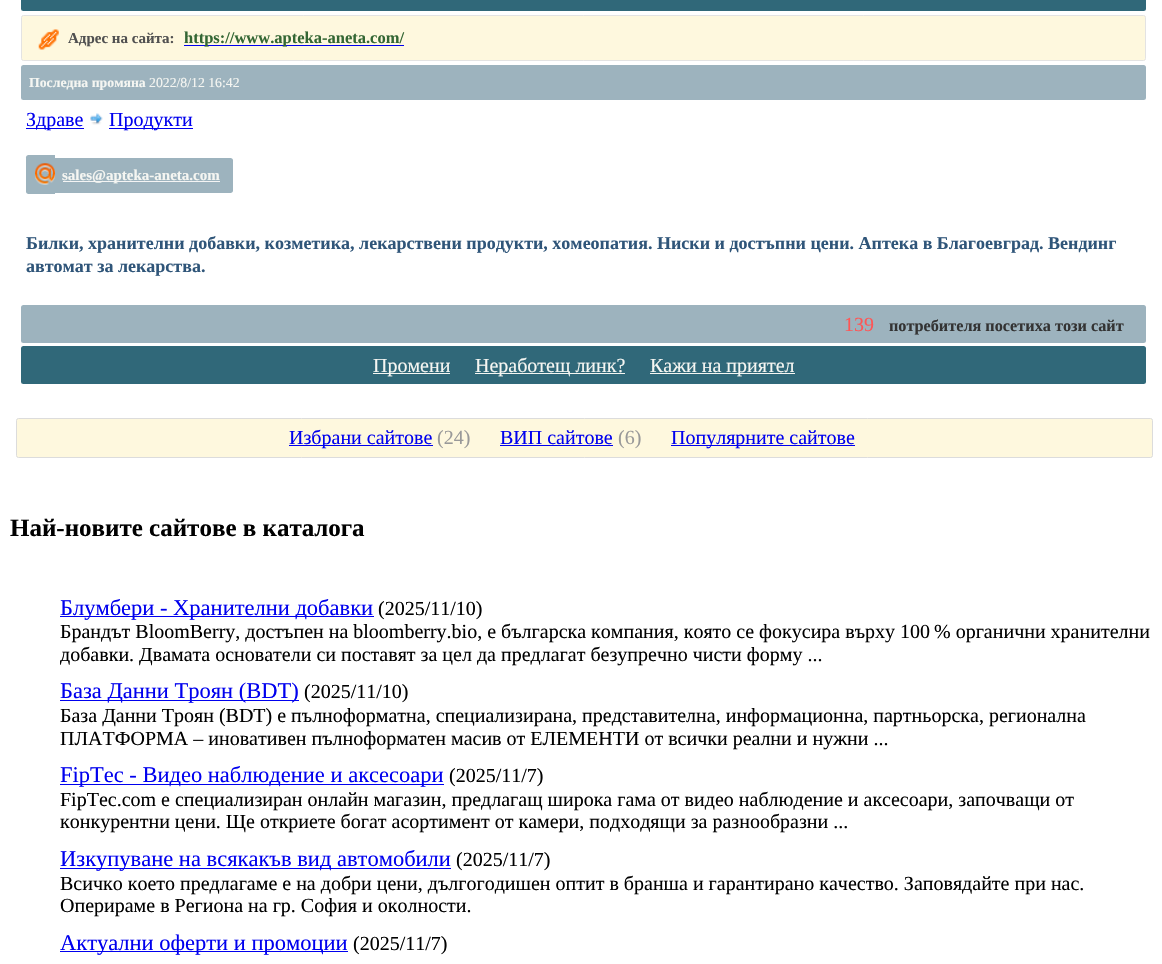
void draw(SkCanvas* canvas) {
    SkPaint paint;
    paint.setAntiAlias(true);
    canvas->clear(0xFFFFFFFF);
    paint.setColor(0xFF306879);
    canvas->drawRoundRect(SkRect::MakeXYWH(21, -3, 1125, 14), 2.5f, 2.5f, paint);
    paint.setColor(0xFFFEF8DE);
    canvas->drawRoundRect(SkRect::MakeXYWH(21.5f, 15.5f, 1124, 45), 2, 2, paint);
    paint.setStyle(SkPaint::kStroke_Style);
    paint.setStrokeWidth(1);
    paint.setColor(0xFFE3E3E3);
    canvas->drawRoundRect(SkRect::MakeXYWH(21.5f, 15.5f, 1124, 45), 2, 2, paint);
    canvas->drawImageRect(SkImages::DeferredFromEncodedData(SkData::MakeFromFileName("img1.png")), SkRect::MakeXYWH(38, 29, 21, 21), SkSamplingOptions());
    SkFont font1(fontMgr->matchFamilyStyle("Liberation Serif", SkFontStyle::Bold()), 15);
    font1.setSubpixel(true);
    paint.setStyle(SkPaint::kFill_Style);
    paint.setColor(0xFF505050);
    canvas->drawString("Адрес на сайта:", 68, 43, font1, paint);
    paint.setColor(0xFF0000EE);
    canvas->drawRect(SkRect::MakeXYWH(184, 45, 220, 1), paint);
    SkFont font2(fontMgr->matchFamilyStyle("Liberation Serif", SkFontStyle::Bold()), 16.5f);
    font2.setSubpixel(true);
    paint.setColor(0xFF336633);
    canvas->drawString("https://www.apteka-aneta.com/", 184, 43, font2, paint);
    paint.setColor(0xFF9DB3BE);
    canvas->drawRoundRect(SkRect::MakeXYWH(21, 65, 1125, 35), 2.5f, 2.5f, paint);
    SkFont font3(fontMgr->matchFamilyStyle("Liberation Serif", SkFontStyle::Bold()), 13.75f);
    font3.setSubpixel(true);
    paint.setColor(0xFFF5F6F2);
    canvas->drawString("Последна промяна", 29, 87, font3, paint);
    SkFont font4(fontMgr->matchFamilyStyle("Liberation Serif", SkFontStyle::Normal()), 13.75f);
    font4.setSubpixel(true);
    canvas->drawString("2022/8/12 16:42", 149, 87, font4, paint);
    paint.setColor(0xFF0000EE);
    canvas->drawRect(SkRect::MakeXYWH(26, 128, 58, 1), paint);
    SkFont font5(fontMgr->matchFamilyStyle("Liberation Serif", SkFontStyle::Normal()), 20);
    font5.setSubpixel(true);
    canvas->drawString("Здраве", 26, 126, font5, paint);
    canvas->drawImageRect(SkImages::DeferredFromEncodedData(SkData::MakeFromFileName("img2.png")), SkRect::MakeXYWH(90, 113, 13, 12), SkSamplingOptions());
    canvas->drawRect(SkRect::MakeXYWH(109, 128, 84, 1), paint);
    canvas->drawString("Продукти", 109, 126, font5, paint);
    paint.setColor(0xFF9DB3BE);
    canvas->drawPath(SkPathBuilder().moveTo(28.5f, 155).lineTo(55, 155).lineTo(55, 194).lineTo(28.5f, 194).cubicTo(27, 194, 26, 193, 26, 191.5f).lineTo(26, 157.5f).cubicTo(26, 156, 27, 155, 28.5f, 155).close().detach(), paint);
    canvas->drawImageRect(SkImages::DeferredFromEncodedData(SkData::MakeFromFileName("img3.png")), SkRect::MakeXYWH(35, 163, 20, 22), SkSamplingOptions());
    canvas->drawRect(SkRect::MakeXYWH(55, 158, 8, 35), paint);
    canvas->drawPath(SkPathBuilder().moveTo(63, 158).lineTo(230.5f, 158).cubicTo(232, 158, 233, 159, 233, 160.5f).lineTo(233, 190.5f).cubicTo(233, 192, 232, 193, 230.5f, 193).lineTo(63, 193).close().detach(), paint);
    paint.setColor(0xFFF4F4F4);
    canvas->drawRect(SkRect::MakeXYWH(63, 181, 157, 1), paint);
    paint.setColor(0xFFF5F6F2);
    canvas->drawString("sales@apteka-aneta.com", 62, 180, font1, paint);
    SkFont font6(fontMgr->matchFamilyStyle("Liberation Serif", SkFontStyle::Bold()), 18);
    font6.setSubpixel(true);
    paint.setColor(0xFF2F5579);
    canvas->drawString("Билки, хранителни добавки, козметика, лекарствени продукти, хомеопатия. Ниски и достъпни цени. Аптека в Благоевград. Вендинг", 26, 249, font6, paint);
    canvas->drawString("автомат за лекарства.", 26, 272, font6, paint);
    paint.setColor(0xFF9DB3BE);
    canvas->drawRoundRect(SkRect::MakeXYWH(21, 305, 1125, 38), 2.5f, 2.5f, paint);
    paint.setColor(0xFFFF5555);
    canvas->drawString("139", 844, 331, font5, paint);
    SkFont font7(fontMgr->matchFamilyStyle("Liberation Serif", SkFontStyle::Bold()), 16.25f);
    font7.setSubpixel(true);
    paint.setColor(0xFF333333);
    canvas->drawString("потребителя посетиха този сайт", 889, 331, font7, paint);
    paint.setColor(0xFF306879);
    canvas->drawRoundRect(SkRect::MakeXYWH(21, 346, 1125, 38), 2.5f, 2.5f, paint);
    paint.setColor(0xFFF5F6F2);
    canvas->drawRect(SkRect::MakeXYWH(373, 373, 77, 1), paint);
    canvas->drawString("Промени", 373, 372, font5, paint);
    canvas->drawRect(SkRect::MakeXYWH(475, 373, 150, 1), paint);
    canvas->drawString("Неработещ линк?", 475, 372, font5, paint);
    canvas->drawRect(SkRect::MakeXYWH(650, 373, 145, 1), paint);
    canvas->drawString("Кажи на приятел", 650, 372, font5, paint);
    paint.setColor(0xFFFEF8DE);
    canvas->drawRoundRect(SkRect::MakeXYWH(16.5f, 418.5f, 1136, 39), 2, 2, paint);
    paint.setStyle(SkPaint::kStroke_Style);
    paint.setColor(0xFFDCDCDC);
    canvas->drawRoundRect(SkRect::MakeXYWH(16.5f, 418.5f, 1136, 39), 2, 2, paint);
    paint.setStyle(SkPaint::kFill_Style);
    paint.setColor(0xFF0000EE);
    canvas->drawRect(SkRect::MakeXYWH(289, 445, 144, 1), paint);
    canvas->drawString("Избрани сайтове", 289, 444, font5, paint);
    paint.setColor(0xFF999999);
    canvas->drawString("(24)", 437, 444, font5, paint);
    paint.setColor(0xFF0000EE);
    canvas->drawString("ВИП сайтове", 500, 444, font5, paint);
    canvas->drawRect(SkRect::MakeXYWH(500, 445, 113, 1), paint);
    paint.setColor(0xFF999999);
    canvas->drawString("(6)", 618, 444, font5, paint);
    paint.setColor(0xFF0000EE);
    canvas->drawRect(SkRect::MakeXYWH(671, 445, 184, 1), paint);
    canvas->drawString("Популярните сайтове", 671, 444, font5, paint);
    SkFont font8(fontMgr->matchFamilyStyle("Liberation Serif", SkFontStyle::Bold()), 25);
    font8.setSubpixel(true);
    paint.setColor(0xFF000000);
    canvas->drawString("Най-новите сайтoве в каталога", 10, 536, font8, paint);
    paint.setColor(0xFF0000EE);
    canvas->drawRect(SkRect::MakeXYWH(60, 616, 314, 1), paint);
    SkFont font9(fontMgr->matchFamilyStyle("Liberation Serif", SkFontStyle::Normal()), 22.5f);
    font9.setSubpixel(true);
    canvas->drawString("Блумбери - Хранителни добавки", 60, 615, font9, paint);
    paint.setColor(0xFF000000);
    canvas->drawString("(2025/11/10)", 378, 615, font5, paint);
    canvas->drawString("Брандът BloomBerry, достъпен на bloomberry.bio, е българска компания, която се фокусира върху 100 % органични хранителни", 60, 638, font5, paint);
    canvas->drawString("добавки. Двамата основатели си поставят за цел да предлагат безупречно чисти форму ...", 60, 661, font5, paint);
    paint.setColor(0xFF0000EE);
    canvas->drawRect(SkRect::MakeXYWH(60, 700, 239, 1), paint);
    canvas->drawString("База Данни Троян (BDT)", 60, 698, font9, paint);
    paint.setColor(0xFF000000);
    canvas->drawString("(2025/11/10)", 304, 698, font5, paint);
    canvas->drawString("База Данни Троян (BDT) е пълноформатна, специализирана, представителна, информационна, партньорска, регионална", 60, 722, font5, paint);
    canvas->drawString("ПЛАТФОРМА – иновативен пълноформатен масив от ЕЛЕМЕНТИ от всички реални и нужни ...", 60, 745, font5, paint);
    paint.setColor(0xFF0000EE);
    canvas->drawRect(SkRect::MakeXYWH(60, 784, 384, 1), paint);
    canvas->drawString("FipTec - Видео наблюдение и аксесоари", 60, 782, font9, paint);
    paint.setColor(0xFF000000);
    canvas->drawString("(2025/11/7)", 449, 782, font5, paint);
    canvas->drawString("FipTec.com е специализиран онлайн магазин, предлагащ широка гама от видео наблюдение и аксесоари, започващи от", 60, 806, font5, paint);
    canvas->drawString("конкурентни цени. Ще откриете богат асортимент от камери, подходящи за разнообразни ...", 60, 828, font5, paint);
    paint.setColor(0xFF0000EE);
    canvas->drawRect(SkRect::MakeXYWH(60, 868, 391, 1), paint);
    canvas->drawString("Изкупуване на всякакъв вид автомобили", 60, 866, font9, paint);
    paint.setColor(0xFF000000);
    canvas->drawString("(2025/11/7)", 456, 866, font5, paint);
    canvas->drawString("Всичко което предлагаме е на добри цени, дългогодишен оптит в бранша и гарантирано качество. Заповядайте при нас.", 60, 890, font5, paint);
    canvas->drawString("Оперираме в Региона на гр. София и околности.", 60, 912, font5, paint);
    paint.setColor(0xFF0000EE);
    canvas->drawRect(SkRect::MakeXYWH(60, 951, 288, 1), paint);
    canvas->drawString("Актуални оферти и промоции", 60, 950, font9, paint);
    paint.setColor(0xFF000000);
    canvas->drawString("(2025/11/7)", 353, 950, font5, paint);
}
